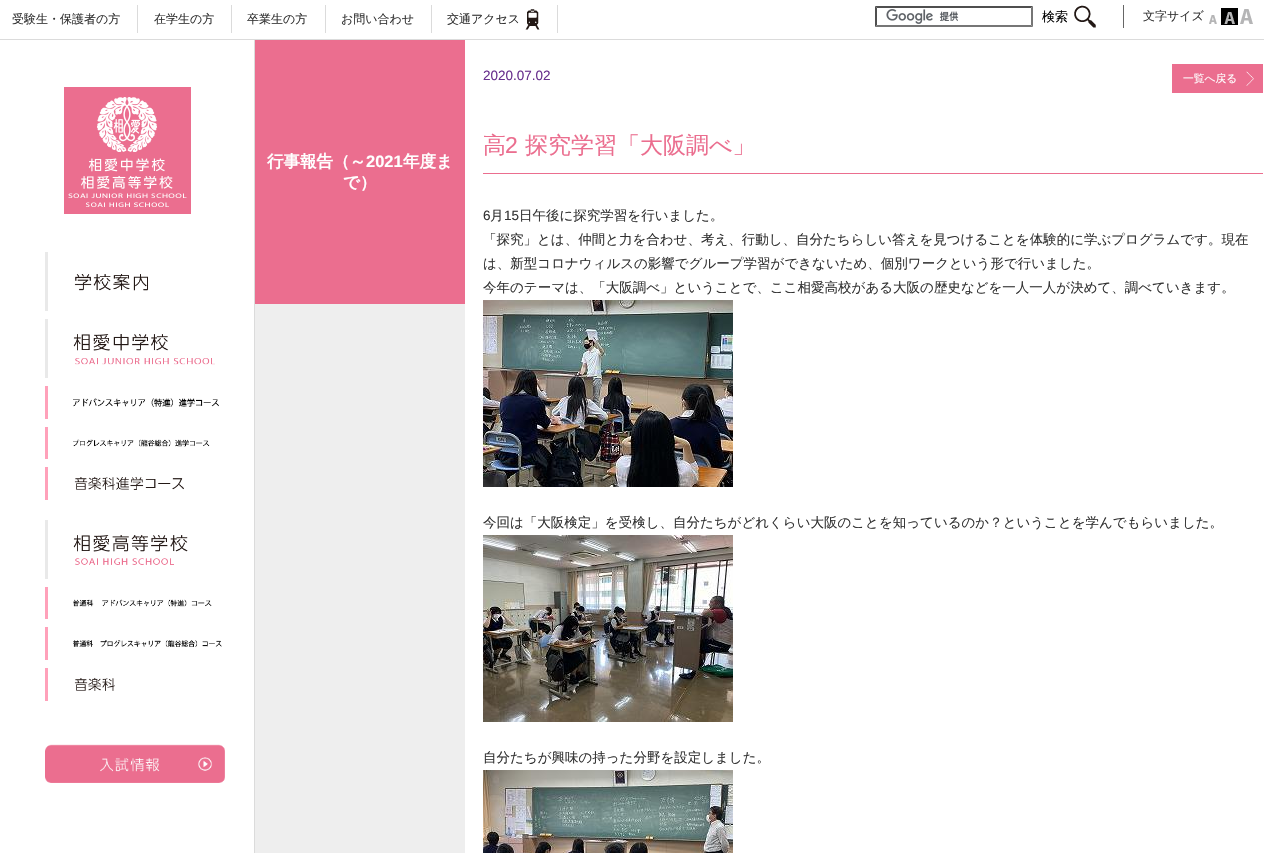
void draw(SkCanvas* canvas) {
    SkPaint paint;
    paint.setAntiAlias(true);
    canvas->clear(0xFFFFFFFF);
    paint.setColor(0xFFDBDBDB);
    canvas->drawRect(SkRect::MakeXYWH(0, 39, 1264, 1), paint);
    canvas->drawRect(SkRect::MakeXYWH(137, 5, 1, 28), paint);
    SkFont font1(fontMgr->matchFamilyStyle("WenQuanYi Zen Hei", SkFontStyle(500, SkFontStyle::kNormal_Width, SkFontStyle::kUpright_Slant)), 12);
    font1.setSubpixel(true);
    paint.setColor(0xFF333333);
    canvas->drawString("受験生・保護者の方", 12, 23, font1, paint);
    paint.setColor(0xFFDBDBDB);
    canvas->drawRect(SkRect::MakeXYWH(231, 5, 1, 28), paint);
    paint.setColor(0xFF333333);
    canvas->drawString("在学生の方", 154, 23, font1, paint);
    paint.setColor(0xFFDBDBDB);
    canvas->drawRect(SkRect::MakeXYWH(325, 5, 1, 28), paint);
    paint.setColor(0xFF333333);
    canvas->drawString("卒業生の方", 247, 23, font1, paint);
    paint.setColor(0xFFDBDBDB);
    canvas->drawRect(SkRect::MakeXYWH(431, 5, 1, 28), paint);
    paint.setColor(0xFF333333);
    canvas->drawString("お問い合わせ", 341, 23, font1, paint);
    paint.setColor(0xFFDBDBDB);
    canvas->drawRect(SkRect::MakeXYWH(557, 5, 1, 28), paint);
    canvas->drawImageRect(SkImages::DeferredFromEncodedData(SkData::MakeFromFileName("img1.png")), SkRect::MakeXYWH(525, 9, 15, 21), SkSamplingOptions());
    paint.setColor(0xFF333333);
    canvas->drawString("交通アクセス", 447, 23, font1, paint);
    paint.setColor(0xFF666666);
    canvas->drawRect(SkRect::MakeXYWH(1123, 5, 1, 23), paint);
    canvas->drawImageRect(SkImages::DeferredFromEncodedData(SkData::MakeFromFileName("img2.png")), SkRect::MakeXYWH(886, 9, 73, 15), SkSamplingOptions());
    paint.setColor(0xFF4F4F4F);
    canvas->drawPath(SkPathBuilder().moveTo(875, 6).lineTo(1033, 6).lineTo(1031, 8).lineTo(877, 8).close().detach(), paint);
    paint.setColor(0xFF767676);
    canvas->drawPath(SkPathBuilder().moveTo(1033, 6).lineTo(1033, 27).lineTo(1031, 25).lineTo(1031, 8).close().detach(), paint);
    canvas->drawPath(SkPathBuilder().moveTo(1033, 27).lineTo(875, 27).lineTo(877, 25).lineTo(1031, 25).close().detach(), paint);
    paint.setColor(0xFF4F4F4F);
    canvas->drawPath(SkPathBuilder().moveTo(875, 27).lineTo(875, 6).lineTo(877, 8).lineTo(877, 25).close().detach(), paint);
    canvas->drawImageRect(SkImages::DeferredFromEncodedData(SkData::MakeFromFileName("img3.png")), SkRect::MakeXYWH(1074, 5, 22, 23), SkSamplingOptions());
    SkFont font2(fontMgr->matchFamilyStyle("WenQuanYi Zen Hei", SkFontStyle(500, SkFontStyle::kNormal_Width, SkFontStyle::kUpright_Slant)), 13);
    font2.setSubpixel(true);
    paint.setColor(0xFF000000);
    canvas->drawString("検索", 1042, 21, font2, paint);
    paint.setColor(0xFF333333);
    canvas->drawString("文字サイズ", 1143, 20, font1, paint);
    canvas->drawImageRect(SkImages::DeferredFromEncodedData(SkData::MakeFromFileName("img4.png")), SkRect::MakeXYWH(1209, 15, 8, 9), SkSamplingOptions());
    paint.setColor(0xFF000000);
    canvas->drawRect(SkRect::MakeXYWH(1221, 8, 17, 17), paint);
    canvas->drawImageRect(SkImages::DeferredFromEncodedData(SkData::MakeFromFileName("img5.png")), SkRect::MakeXYWH(1224, 12, 11, 12), SkSamplingOptions());
    canvas->drawImageRect(SkImages::DeferredFromEncodedData(SkData::MakeFromFileName("img6.png")), SkRect::MakeXYWH(1240, 9, 13, 15), SkSamplingOptions());
    canvas->drawImageRect(SkImages::DeferredFromEncodedData(SkData::MakeFromFileName("img7.png")), SkRect::MakeXYWH(64, 87, 127, 127), SkSamplingOptions());
    paint.setColor(0xFFE9E9E9);
    canvas->drawRect(SkRect::MakeXYWH(45, 252, 3, 59), paint);
    canvas->drawImageRect(SkImages::DeferredFromEncodedData(SkData::MakeFromFileName("img8.png")), SkRect::MakeXYWH(74, 274, 74, 17), SkSamplingOptions());
    canvas->drawRect(SkRect::MakeXYWH(45, 319, 3, 59), paint);
    canvas->drawImageRect(SkImages::DeferredFromEncodedData(SkData::MakeFromFileName("img9.png")), SkRect::MakeXYWH(73, 334, 142, 31), SkSamplingOptions());
    paint.setColor(0xFFFFA1BA);
    canvas->drawRect(SkRect::MakeXYWH(45, 386, 3, 33), paint);
    canvas->drawImageRect(SkImages::DeferredFromEncodedData(SkData::MakeFromFileName("img10.png")), SkRect::MakeXYWH(73, 398, 146, 9), SkSamplingOptions());
    canvas->drawRect(SkRect::MakeXYWH(45, 427, 3, 32), paint);
    canvas->drawImageRect(SkImages::DeferredFromEncodedData(SkData::MakeFromFileName("img11.png")), SkRect::MakeXYWH(73, 439, 137, 8), SkSamplingOptions());
    canvas->drawRect(SkRect::MakeXYWH(45, 467, 3, 33), paint);
    canvas->drawImageRect(SkImages::DeferredFromEncodedData(SkData::MakeFromFileName("img12.png")), SkRect::MakeXYWH(74, 476, 110, 14), SkSamplingOptions());
    paint.setColor(0xFFE9E9E9);
    canvas->drawRect(SkRect::MakeXYWH(45, 520, 3, 59), paint);
    canvas->drawImageRect(SkImages::DeferredFromEncodedData(SkData::MakeFromFileName("img13.png")), SkRect::MakeXYWH(73, 535, 115, 30), SkSamplingOptions());
    paint.setColor(0xFFFFA1BA);
    canvas->drawRect(SkRect::MakeXYWH(45, 587, 3, 32), paint);
    canvas->drawImageRect(SkImages::DeferredFromEncodedData(SkData::MakeFromFileName("img14.png")), SkRect::MakeXYWH(73, 599, 139, 8), SkSamplingOptions());
    canvas->drawRect(SkRect::MakeXYWH(45, 627, 3, 33), paint);
    canvas->drawImageRect(SkImages::DeferredFromEncodedData(SkData::MakeFromFileName("img15.png")), SkRect::MakeXYWH(73, 640, 149, 7), SkSamplingOptions());
    canvas->drawRect(SkRect::MakeXYWH(45, 668, 3, 33), paint);
    canvas->drawImageRect(SkImages::DeferredFromEncodedData(SkData::MakeFromFileName("img16.png")), SkRect::MakeXYWH(74, 677, 41, 14), SkSamplingOptions());
    canvas->drawImageRect(SkImages::DeferredFromEncodedData(SkData::MakeFromFileName("img17.png")), SkRect::MakeXYWH(45, 744, 180, 39), SkSamplingOptions());
    paint.setColor(0xFFDBDBDB);
    canvas->drawRect(SkRect::MakeXYWH(254, 40, 1, 813), paint);
    paint.setColor(0xFFEB6E8F);
    canvas->drawRect(SkRect::MakeXYWH(255, 40, 210, 264), paint);
    SkFont font3(fontMgr->matchFamilyStyle("WenQuanYi Zen Hei", SkFontStyle::Bold()), 16.5f);
    font3.setSubpixel(true);
    paint.setColor(0xFFFFFFFF);
    canvas->drawString("行事報告（～", 267, 167, font3, paint);
    SkFont font4(fontMgr->matchFamilyStyle("Liberation Sans", SkFontStyle::Bold()), 16.5f);
    font4.setSubpixel(true);
    canvas->drawString("2021", 366, 167, font4, paint);
    canvas->drawString("年度ま", 403, 167, font3, paint);
    canvas->drawString("で）", 343, 188, font3, paint);
    SkFont font5(fontMgr->matchFamilyStyle("Liberation Sans", SkFontStyle::Normal()), 13.5f);
    font5.setSubpixel(true);
    paint.setColor(0xFF69318E);
    canvas->drawString("2020.07.02", 483, 80, font5, paint);
    paint.setColor(0xFFEB6E8F);
    canvas->drawRect(SkRect::MakeXYWH(1172, 64, 91, 29), paint);
    canvas->drawImageRect(SkImages::DeferredFromEncodedData(SkData::MakeFromFileName("img18.png")), SkRect::MakeXYWH(1246, 71, 8, 15), SkSamplingOptions());
    SkFont font6(fontMgr->matchFamilyStyle("WenQuanYi Zen Hei", SkFontStyle(500, SkFontStyle::kNormal_Width, SkFontStyle::kUpright_Slant)), 10.75f);
    font6.setSubpixel(true);
    paint.setColor(0xFFFFFFFF);
    canvas->drawString("一覧へ戻る", 1183, 82, font6, paint);
    paint.setColor(0xFFEB6E8F);
    canvas->drawRect(SkRect::MakeXYWH(483, 173, 780, 1), paint);
    SkFont font7(fontMgr->matchFamilyStyle("WenQuanYi Zen Hei", SkFontStyle(500, SkFontStyle::kNormal_Width, SkFontStyle::kUpright_Slant)), 23);
    font7.setSubpixel(true);
    canvas->drawString("高", 483, 153, font7, paint);
    SkFont font8(fontMgr->matchFamilyStyle("Liberation Sans", SkFontStyle::Normal()), 23);
    font8.setSubpixel(true);
    canvas->drawString("2", 505, 153, font8, paint);
    canvas->drawString("探究学習「大阪調べ」", 525, 153, font7, paint);
    paint.setColor(0xFF333333);
    canvas->drawString("6", 483, 220, font5, paint);
    SkFont font9(fontMgr->matchFamilyStyle("WenQuanYi Zen Hei", SkFontStyle(500, SkFontStyle::kNormal_Width, SkFontStyle::kUpright_Slant)), 13.5f);
    font9.setSubpixel(true);
    canvas->drawString("月", 490, 220, font9, paint);
    canvas->drawString("15", 504, 220, font5, paint);
    canvas->drawString("日午後に探究学習を行いました。", 519, 220, font9, paint);
    canvas->drawString("「探究」とは、仲間と力を合わせ、考え、行動し、自分たちらしい答えを見つけることを体験的に学ぶプログラムです。現在", 483, 244, font9, paint);
    canvas->drawString("は、新型コロナウィルスの影響でグループ学習ができないため、個別ワークという形で行いました。", 483, 268, font9, paint);
    canvas->drawString("今年のテーマは、「大阪調べ」ということで、ここ相愛高校がある大阪の歴史などを一人一人が決めて、調べていきます。", 483, 292, font9, paint);
    canvas->drawImageRect(SkImages::DeferredFromEncodedData(SkData::MakeFromFileName("img19.png")), SkRect::MakeXYWH(483, 300, 250, 187), SkSamplingOptions());
    canvas->drawString("今回は「大阪検定」を受検し、自分たちがどれくらい大阪のことを知っているのか？ということを学んでもらいました。", 483, 527, font9, paint);
    canvas->drawImageRect(SkImages::DeferredFromEncodedData(SkData::MakeFromFileName("img20.png")), SkRect::MakeXYWH(483, 535, 250, 187), SkSamplingOptions());
    canvas->drawString("自分たちが興味の持った分野を設定しました。", 483, 762, font9, paint);
    canvas->drawImageRect(SkImages::DeferredFromEncodedData(SkData::MakeFromFileName("img21.png")), SkRect::MakeXYWH(483, 770, 250, 83), SkSamplingOptions());
    paint.setColor(0xFFEEEEEE);
    canvas->drawRect(SkRect::MakeXYWH(255, 304, 210, 549), paint);
}
